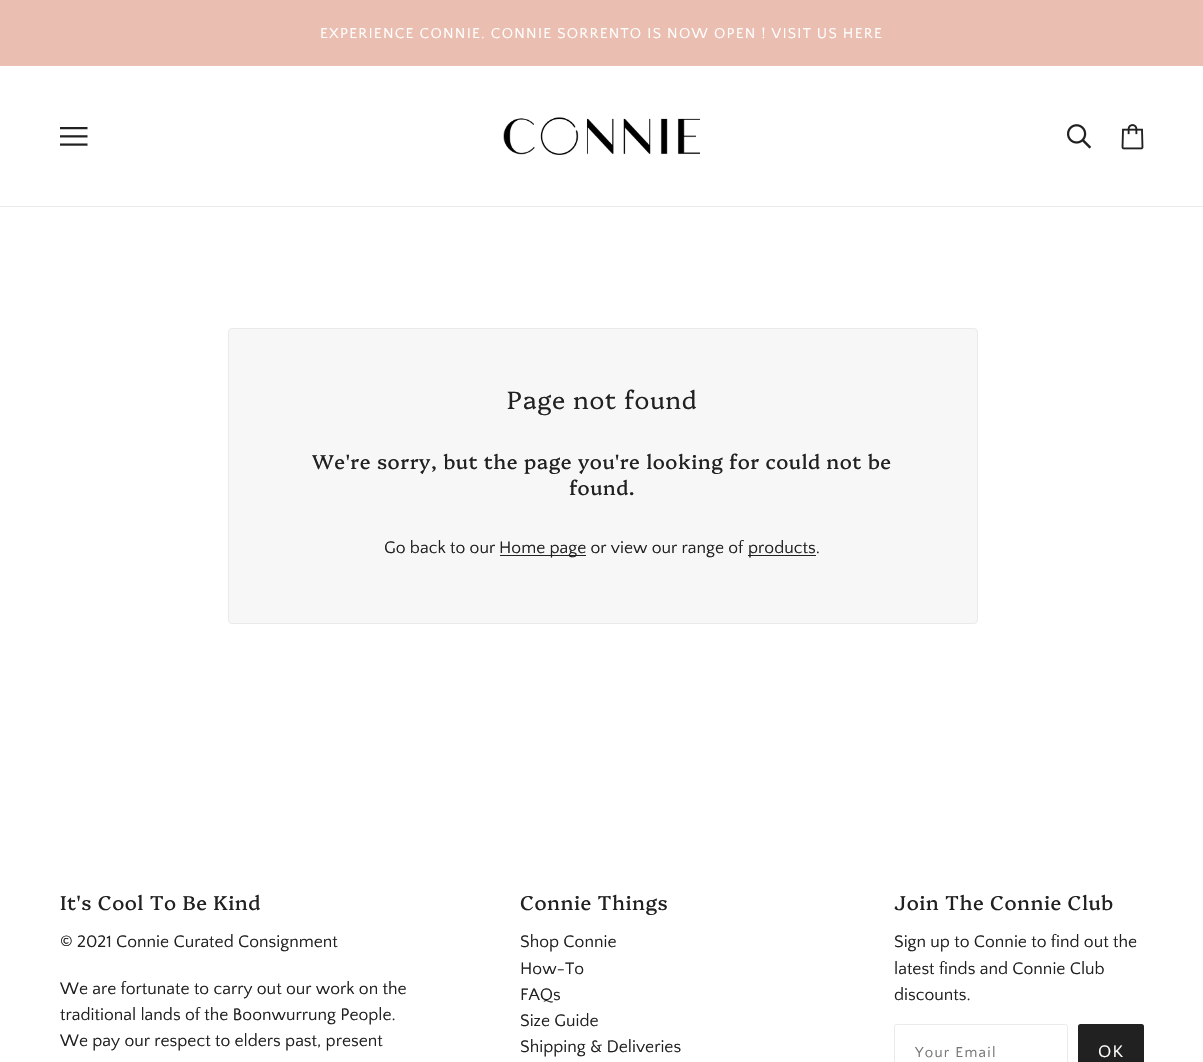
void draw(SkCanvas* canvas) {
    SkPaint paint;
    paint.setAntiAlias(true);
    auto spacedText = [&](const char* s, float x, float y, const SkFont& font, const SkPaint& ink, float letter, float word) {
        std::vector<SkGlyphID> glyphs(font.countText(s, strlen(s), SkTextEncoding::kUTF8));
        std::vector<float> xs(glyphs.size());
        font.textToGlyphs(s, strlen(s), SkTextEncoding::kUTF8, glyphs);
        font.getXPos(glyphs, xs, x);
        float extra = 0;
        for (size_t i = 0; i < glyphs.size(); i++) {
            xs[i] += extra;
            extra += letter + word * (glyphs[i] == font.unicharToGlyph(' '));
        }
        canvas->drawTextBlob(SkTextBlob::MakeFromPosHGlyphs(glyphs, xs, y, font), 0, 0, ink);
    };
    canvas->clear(0xFFFFFFFF);
    paint.setColor(0xFFEABEB0);
    canvas->drawRect(SkRect::MakeXYWH(0, 0, 1203, 66), paint);
    SkFont font1(fontMgr->matchFamilyStyle("Quattrocento Sans", SkFontStyle::Normal()), 15);
    font1.setSubpixel(true);
    paint.setColor(0xFFFFFFFF);
    spacedText("EXPERIENCE CONNIE. CONNIE SORRENTO IS NOW OPEN ! VISIT US HERE", 320, 38, font1, paint, 1.25f, 0);
    paint.setColor(0xFFEAEAEA);
    canvas->drawRect(SkRect::MakeXYWH(0, 206, 1203, 1), paint);
    canvas->drawImageRect(SkImages::DeferredFromEncodedData(SkData::MakeFromFileName("img1.png")), SkRect::MakeXYWH(60, 127, 28, 19), SkSamplingOptions());
    canvas->drawImageRect(SkImages::DeferredFromEncodedData(SkData::MakeFromFileName("img2.png")), SkRect::MakeXYWH(503, 117, 197, 38), SkSamplingOptions());
    canvas->drawImageRect(SkImages::DeferredFromEncodedData(SkData::MakeFromFileName("img3.png")), SkRect::MakeXYWH(1067, 124, 24, 25), SkSamplingOptions());
    canvas->drawImageRect(SkImages::DeferredFromEncodedData(SkData::MakeFromFileName("img4.png")), SkRect::MakeXYWH(1121, 124, 23, 26), SkSamplingOptions());
    paint.setColor(0xFFF7F7F7);
    canvas->drawRoundRect(SkRect::MakeXYWH(228.5f, 328.5f, 749, 295), 3.5f, 3.5f, paint);
    paint.setStyle(SkPaint::kStroke_Style);
    paint.setStrokeWidth(1);
    paint.setColor(0xFFEAEAEA);
    canvas->drawRoundRect(SkRect::MakeXYWH(228.5f, 328.5f, 749, 295), 3.5f, 3.5f, paint);
    SkFont font2(fontMgr->matchFamilyStyle("Platypi", SkFontStyle(300, SkFontStyle::kNormal_Width, SkFontStyle::kUpright_Slant)), 25);
    font2.setSubpixel(true);
    paint.setStyle(SkPaint::kFill_Style);
    paint.setColor(0xFF212121);
    spacedText("Page not found", 507, 409, font2, paint, 0.6f, 0);
    SkFont font3(fontMgr->matchFamilyStyle("Platypi", SkFontStyle::Normal()), 20);
    font3.setSubpixel(true);
    spacedText("We're sorry, but the page you're looking for could not be", 312, 469, font3, paint, 0.5f, 0);
    spacedText("found.", 569, 495, font3, paint, 0.5f, 0);
    SkFont font4(fontMgr->matchFamilyStyle("Quattrocento Sans", SkFontStyle::Normal()), 17.5f);
    font4.setSubpixel(true);
    canvas->drawString("Go back to our", 384, 553, font4, paint);
    canvas->drawRect(SkRect::MakeXYWH(500, 555, 86, 1), paint);
    canvas->drawString("Home page or view our range of", 499, 553, font4, paint);
    canvas->drawRect(SkRect::MakeXYWH(748, 555, 68, 1), paint);
    canvas->drawString("products.", 748, 553, font4, paint);
    spacedText("It's Cool To Be Kind", 60, 910, font3, paint, 0.5f, 0);
    canvas->drawString("© 2021 Connie Curated Consignment", 60, 947, font4, paint);
    canvas->drawString("We are fortunate to carry out our work on the", 60, 994, font4, paint);
    canvas->drawString("traditional lands of the Boonwurrung People.", 60, 1020, font4, paint);
    canvas->drawString("We pay our respect to elders past, present", 60, 1046, font4, paint);
    spacedText("Connie Things", 520, 910, font3, paint, 0.5f, 0);
    canvas->drawString("Shop Connie", 520, 947, font4, paint);
    canvas->drawString("How-To", 520, 974, font4, paint);
    canvas->drawString("FAQs", 520, 1000, font4, paint);
    canvas->drawString("Size Guide", 520, 1026, font4, paint);
    canvas->drawString("Shipping & Deliveries", 520, 1052, font4, paint);
    spacedText("Join The Connie Club", 894, 910, font3, paint, 0.5f, 0);
    canvas->drawString("Sign up to Connie to find out the", 894, 947, font4, paint);
    canvas->drawString("latest finds and Connie Club", 894, 974, font4, paint);
    canvas->drawString("discounts.", 894, 1000, font4, paint);
    paint.setStyle(SkPaint::kStroke_Style);
    paint.setColor(0xFFEAEAEA);
    canvas->drawRoundRect(SkRect::MakeXYWH(894.5f, 1024.5f, 173, 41), 2, 2, paint);
    paint.setStyle(SkPaint::kFill_Style);
    paint.setColor(0xFF757575);
    spacedText("Your Email", 915, 1057, font1, paint, 1.25f, 0);
    paint.setColor(0xFF212121);
    canvas->drawRoundRect(SkRect::MakeXYWH(1078, 1024, 66, 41), 2.5f, 2.5f, paint);
    paint.setColor(0xFFFFFFFF);
    spacedText("OK", 1098, 1057, font4, paint, 1.25f, 0);
}
